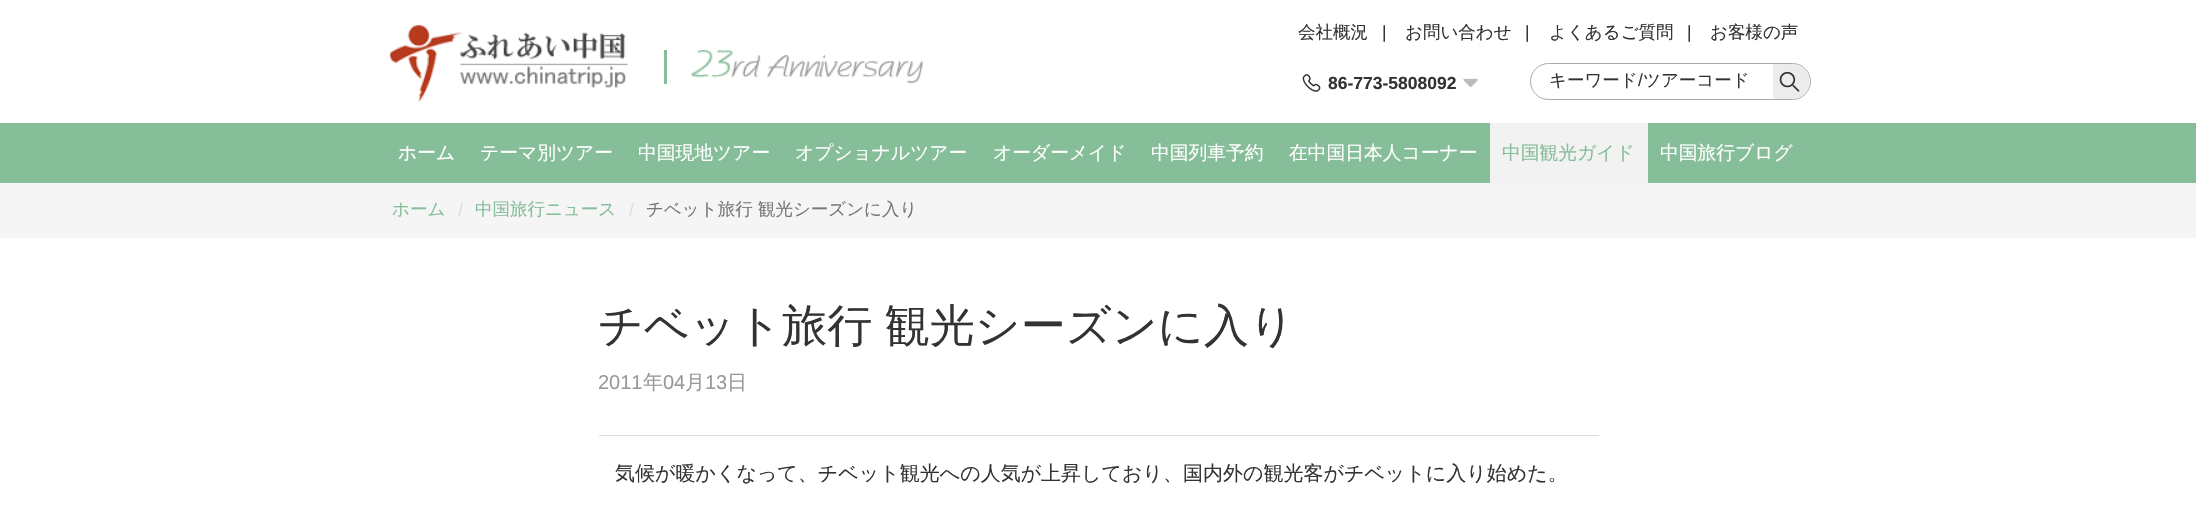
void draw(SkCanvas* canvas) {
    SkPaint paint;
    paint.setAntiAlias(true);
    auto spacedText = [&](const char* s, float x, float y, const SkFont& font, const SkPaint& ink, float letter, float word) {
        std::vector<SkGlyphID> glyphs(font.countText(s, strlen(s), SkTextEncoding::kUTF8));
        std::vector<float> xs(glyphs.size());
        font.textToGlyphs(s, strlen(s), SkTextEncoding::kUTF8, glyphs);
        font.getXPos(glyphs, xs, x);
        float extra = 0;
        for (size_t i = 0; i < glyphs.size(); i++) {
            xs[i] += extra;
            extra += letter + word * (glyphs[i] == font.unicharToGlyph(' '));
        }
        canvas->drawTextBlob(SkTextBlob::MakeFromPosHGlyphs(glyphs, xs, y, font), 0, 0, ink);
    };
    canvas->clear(0xFFFFFFFF);
    canvas->drawImageRect(SkImages::DeferredFromEncodedData(SkData::MakeFromFileName("img1.png")), SkRect::MakeXYWH(389, 24, 239, 79), SkSamplingOptions());
    paint.setColor(0xFF86BE99);
    canvas->drawRect(SkRect::MakeXYWH(664, 50, 3, 34), paint);
    canvas->drawImageRect(SkImages::DeferredFromEncodedData(SkData::MakeFromFileName("img2.png")), SkRect::MakeXYWH(691, 50, 232, 34), SkSamplingOptions());
    SkFont font1(fontMgr->matchFamilyStyle("WenQuanYi Zen Hei", SkFontStyle(500, SkFontStyle::kNormal_Width, SkFontStyle::kUpright_Slant)), 17.5f);
    font1.setSubpixel(true);
    paint.setColor(0xFF333333);
    canvas->drawString("会社概況", 1298, 38, font1, paint);
    SkFont font2(fontMgr->matchFamilyStyle("Liberation Sans", SkFontStyle::Normal()), 17.5f);
    font2.setSubpixel(true);
    canvas->drawString("|", 1382, 38, font2, paint);
    canvas->drawString("お問い合わせ", 1405, 38, font1, paint);
    canvas->drawString("|", 1525, 38, font2, paint);
    canvas->drawString("よくあるご質問", 1549, 38, font1, paint);
    canvas->drawString("|", 1687, 38, font2, paint);
    canvas->drawString("お客様の声", 1710, 38, font1, paint);
    canvas->drawImageRect(SkImages::DeferredFromEncodedData(SkData::MakeFromFileName("img3.png")), SkRect::MakeXYWH(1302, 74, 19, 18), SkSamplingOptions());
    SkFont font3(fontMgr->matchFamilyStyle("Liberation Sans", SkFontStyle::Bold()), 17.5f);
    font3.setSubpixel(true);
    canvas->drawString("86-773-5808092", 1328, 89, font3, paint);
    canvas->drawImageRect(SkImages::DeferredFromEncodedData(SkData::MakeFromFileName("img4.png")), SkRect::MakeXYWH(1463, 78, 15, 9), SkSamplingOptions());
    paint.setStyle(SkPaint::kStroke_Style);
    paint.setStrokeWidth(1);
    paint.setColor(0xFFAAAAAA);
    canvas->drawRoundRect(SkRect::MakeXYWH(1530.5f, 63.5f, 280, 36), 18, 18, paint);
    paint.setStyle(SkPaint::kFill_Style);
    paint.setColor(0xFF333333);
    canvas->drawString("キーワード", 1549, 86, font1, paint);
    canvas->drawString("/", 1638, 86, font2, paint);
    canvas->drawString("ツアーコード", 1643, 86, font1, paint);
    paint.setColor(0xFFECECEC);
    canvas->drawPath(SkPathBuilder().moveTo(1773, 64).lineTo(1792.5f, 64).cubicTo(1802, 64, 1810, 72, 1810, 81.5f).cubicTo(1810, 91, 1802, 99, 1792.5f, 99).lineTo(1773, 99).close().detach(), paint);
    canvas->drawImageRect(SkImages::DeferredFromEncodedData(SkData::MakeFromFileName("img5.png")), SkRect::MakeXYWH(1779, 71, 21, 21), SkSamplingOptions());
    paint.setColor(0xFF86BE99);
    canvas->drawRect(SkRect::MakeXYWH(0, 123, 2196, 60), paint);
    SkFont font4(fontMgr->matchFamilyStyle("WenQuanYi Zen Hei", SkFontStyle(500, SkFontStyle::kNormal_Width, SkFontStyle::kUpright_Slant)), 18.75f);
    font4.setSubpixel(true);
    paint.setColor(0xFFFFFFFF);
    canvas->drawString("ホーム", 398, 159, font4, paint);
    canvas->drawString("テーマ別ツアー", 480, 159, font4, paint);
    canvas->drawString("中国現地ツアー", 638, 159, font4, paint);
    canvas->drawString("オプショナルツアー", 795, 159, font4, paint);
    canvas->drawString("オーダーメイド", 993, 159, font4, paint);
    canvas->drawString("中国列車予約", 1151, 159, font4, paint);
    canvas->drawString("在中国日本人コーナー", 1289, 159, font4, paint);
    paint.setColor(0xFFF2F2F2);
    canvas->drawRect(SkRect::MakeXYWH(1490, 123, 158, 60), paint);
    paint.setColor(0xFF86BE99);
    canvas->drawString("中国観光ガイド", 1502, 159, font4, paint);
    paint.setColor(0xFFFFFFFF);
    canvas->drawString("中国旅行ブログ", 1660, 159, font4, paint);
    paint.setColor(0xFFF5F5F5);
    canvas->drawRect(SkRect::MakeXYWH(0, 183, 2196, 55), paint);
    paint.setColor(0xFF86BE99);
    canvas->drawString("ホーム", 392, 215, font1, paint);
    paint.setColor(0xFFDDDDDD);
    canvas->drawString("/", 458, 216, font2, paint);
    paint.setColor(0xFF86BE99);
    canvas->drawString("中国旅行ニュース", 475, 215, font1, paint);
    paint.setColor(0xFFDDDDDD);
    canvas->drawString("/", 629, 216, font2, paint);
    paint.setColor(0xFF777777);
    canvas->drawString("チベット旅行 観光シーズンに入り", 646, 215, font1, paint);
    paint.setColor(0xFFDDDDDD);
    canvas->drawRect(SkRect::MakeXYWH(599, 435, 1000, 1), paint);
    SkFont font5(fontMgr->matchFamilyStyle("WenQuanYi Zen Hei", SkFontStyle(500, SkFontStyle::kNormal_Width, SkFontStyle::kUpright_Slant)), 45);
    font5.setSubpixel(true);
    paint.setColor(0xFF333333);
    spacedText("チベット旅行 観光シーズンに入り", 598, 341, font5, paint, 0, -1);
    SkFont font6(fontMgr->matchFamilyStyle("Liberation Sans", SkFontStyle::Normal()), 20);
    font6.setSubpixel(true);
    paint.setColor(0xFF999999);
    canvas->drawString("2011", 598, 389, font6, paint);
    SkFont font7(fontMgr->matchFamilyStyle("WenQuanYi Zen Hei", SkFontStyle(500, SkFontStyle::kNormal_Width, SkFontStyle::kUpright_Slant)), 20);
    font7.setSubpixel(true);
    canvas->drawString("年", 643, 389, font7, paint);
    canvas->drawString("04", 663, 389, font6, paint);
    canvas->drawString("月", 685, 389, font7, paint);
    canvas->drawString("13", 705, 389, font6, paint);
    canvas->drawString("日", 727, 389, font7, paint);
    paint.setColor(0xFF333333);
    canvas->drawString("気候が暖かくなって、チベット観光への人気が上昇しており、国内外の観光客がチベットに入り始めた。", 615, 480, font7, paint);
}
